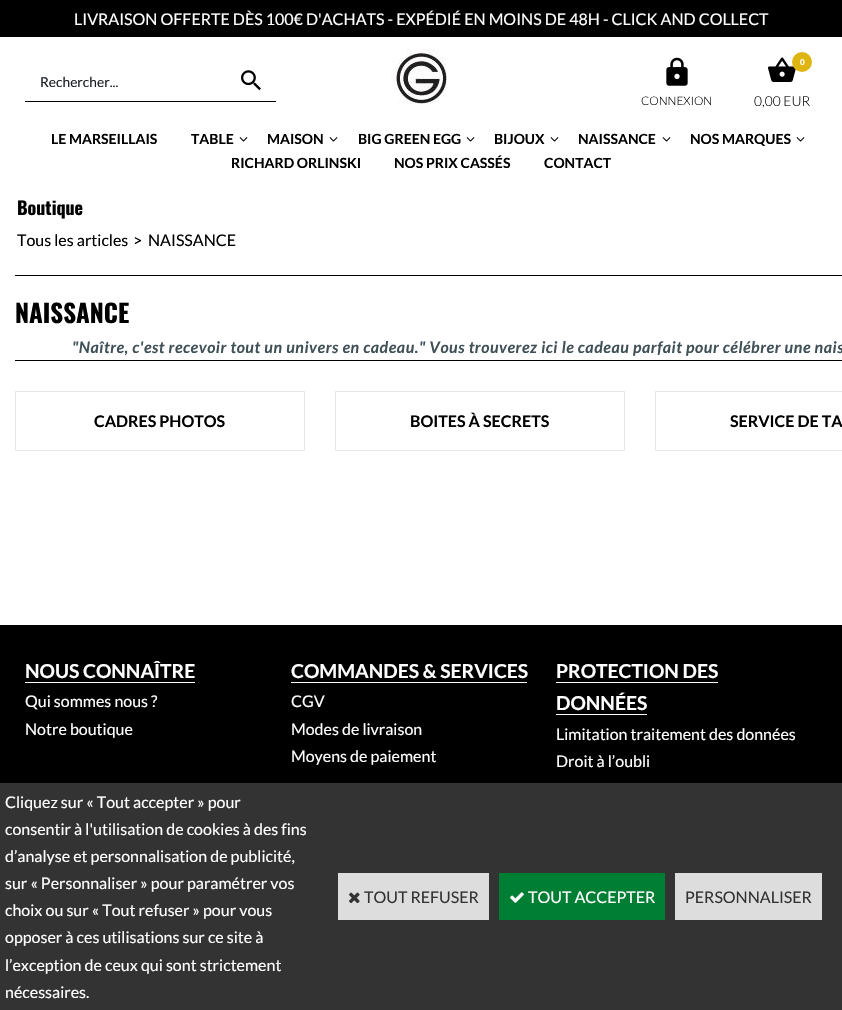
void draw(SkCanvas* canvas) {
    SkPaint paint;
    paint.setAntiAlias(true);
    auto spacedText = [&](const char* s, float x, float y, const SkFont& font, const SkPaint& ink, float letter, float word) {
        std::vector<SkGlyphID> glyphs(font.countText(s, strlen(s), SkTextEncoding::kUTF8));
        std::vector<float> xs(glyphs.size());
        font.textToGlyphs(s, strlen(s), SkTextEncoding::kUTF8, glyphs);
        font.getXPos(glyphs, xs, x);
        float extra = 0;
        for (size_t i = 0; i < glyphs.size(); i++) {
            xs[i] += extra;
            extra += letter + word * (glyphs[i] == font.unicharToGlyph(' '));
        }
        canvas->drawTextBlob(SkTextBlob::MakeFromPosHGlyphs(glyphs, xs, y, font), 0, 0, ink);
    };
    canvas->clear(0xFFFFFFFF);
    paint.setColor(0xFF000000);
    canvas->drawRect(SkRect::MakeXYWH(0, 0, 842, 37), paint);
    SkFont font1(fontMgr->matchFamilyStyle("Lato", SkFontStyle::Normal()), 16);
    font1.setSubpixel(true);
    paint.setColor(0xFFFFFFFF);
    canvas->drawString("LIVRAISON OFFERTE DÈS 100€ D'ACHATS - EXPÉDIÉ EN MOINS DE 48H - CLICK AND COLLECT", 74, 25, font1, paint);
    paint.setColor(0xFF000000);
    canvas->drawRect(SkRect::MakeXYWH(25, 101, 251, 1), paint);
    SkFont font2(fontMgr->matchFamilyStyle("Lato", SkFontStyle::Normal()), 13.75f);
    font2.setSubpixel(true);
    paint.setColor(0xFF1A1F26);
    canvas->drawString("Rechercher...", 40, 87, font2, paint);
    canvas->drawImageRect(SkImages::DeferredFromEncodedData(SkData::MakeFromFileName("img1.png")), SkRect::MakeXYWH(241, 70, 20, 21), SkSamplingOptions());
    canvas->drawImageRect(SkImages::DeferredFromEncodedData(SkData::MakeFromFileName("img2.png")), SkRect::MakeXYWH(391, 49, 56, 56), SkSamplingOptions());
    canvas->drawImageRect(SkImages::DeferredFromEncodedData(SkData::MakeFromFileName("img3.png")), SkRect::MakeXYWH(666, 57, 22, 29), SkSamplingOptions());
    SkFont font3(fontMgr->matchFamilyStyle("Lato", SkFontStyle(300, SkFontStyle::kNormal_Width, SkFontStyle::kUpright_Slant)), 11.75f);
    font3.setSubpixel(true);
    paint.setColor(0xFF000000);
    canvas->drawString("CONNEXION", 641, 105, font3, paint);
    canvas->drawImageRect(SkImages::DeferredFromEncodedData(SkData::MakeFromFileName("img4.png")), SkRect::MakeXYWH(768, 57, 28, 25), SkSamplingOptions());
    paint.setColor(0xFFDFB511);
    canvas->drawCircle(802, 62, 10, paint);
    SkFont font4(fontMgr->matchFamilyStyle("Lato", SkFontStyle::Bold()), 8);
    font4.setSubpixel(true);
    paint.setColor(0xFFFFFFFF);
    canvas->drawString("0", 800, 65, font4, paint);
    SkFont font5(fontMgr->matchFamilyStyle("Lato", SkFontStyle(300, SkFontStyle::kNormal_Width, SkFontStyle::kUpright_Slant)), 13.75f);
    font5.setSubpixel(true);
    paint.setColor(0xFF000000);
    canvas->drawString("0,00 EUR", 754, 106, font5, paint);
    SkFont font6(fontMgr->matchFamilyStyle("Lato", SkFontStyle::Bold()), 14);
    font6.setSubpixel(true);
    canvas->drawString("LE MARSEILLAIS", 51, 144, font6, paint);
    canvas->drawString("TABLE", 191, 144, font6, paint);
    canvas->drawImageRect(SkImages::DeferredFromEncodedData(SkData::MakeFromFileName("img5.png")), SkRect::MakeXYWH(239, 137, 9, 5), SkSamplingOptions());
    canvas->drawString("MAISON", 267, 144, font6, paint);
    canvas->drawImageRect(SkImages::DeferredFromEncodedData(SkData::MakeFromFileName("img5.png")), SkRect::MakeXYWH(329, 137, 9, 5), SkSamplingOptions());
    canvas->drawString("BIG GREEN EGG", 358, 144, font6, paint);
    canvas->drawImageRect(SkImages::DeferredFromEncodedData(SkData::MakeFromFileName("img5.png")), SkRect::MakeXYWH(466, 137, 9, 5), SkSamplingOptions());
    canvas->drawString("BIJOUX", 494, 144, font6, paint);
    canvas->drawImageRect(SkImages::DeferredFromEncodedData(SkData::MakeFromFileName("img5.png")), SkRect::MakeXYWH(550, 137, 9, 5), SkSamplingOptions());
    canvas->drawString("NAISSANCE", 578, 144, font6, paint);
    canvas->drawImageRect(SkImages::DeferredFromEncodedData(SkData::MakeFromFileName("img5.png")), SkRect::MakeXYWH(662, 137, 9, 5), SkSamplingOptions());
    canvas->drawString("NOS MARQUES", 690, 144, font6, paint);
    canvas->drawImageRect(SkImages::DeferredFromEncodedData(SkData::MakeFromFileName("img5.png")), SkRect::MakeXYWH(796, 137, 9, 5), SkSamplingOptions());
    canvas->drawString("RICHARD ORLINSKI", 231, 168, font6, paint);
    canvas->drawString("NOS PRIX CASSÉS", 394, 168, font6, paint);
    canvas->drawString("CONTACT", 544, 168, font6, paint);
    canvas->drawRect(SkRect::MakeXYWH(15, 275, 827, 1), paint);
    SkFont font7(fontMgr->matchFamilyStyle("Oswald", SkFontStyle::Bold()), 18);
    font7.setSubpixel(true);
    canvas->drawString("Boutique", 17, 215, font7, paint);
    canvas->drawString("Tous les articles", 17, 246, font1, paint);
    canvas->drawString(">", 133, 246, font1, paint);
    canvas->drawString("NAISSANCE", 148, 246, font1, paint);
    canvas->drawRect(SkRect::MakeXYWH(15, 360, 827, 1), paint);
    SkFont font8(fontMgr->matchFamilyStyle("Oswald", SkFontStyle::Bold()), 25);
    font8.setSubpixel(true);
    canvas->drawString("NAISSANCE", 15, 323, font8, paint);
    SkFont font9(fontMgr->matchFamilyStyle("Lato", SkFontStyle::BoldItalic()), 16);
    font9.setSubpixel(true);
    paint.setColor(0xFF3F5057);
    spacedText("\"Naître, c'est recevoir tout un univers en cadeau.\" Vous trouverez ici le cadeau parfait pour célébrer une nais", 72, 353, font9, paint, 0.53f, 0);
    paint.setStyle(SkPaint::kStroke_Style);
    paint.setStrokeWidth(1);
    paint.setColor(0xFFE6E6E6);
    canvas->drawRect(SkRect::MakeXYWH(15.5f, 391.5f, 289, 59), paint);
    SkFont font10(fontMgr->matchFamilyStyle("Lato", SkFontStyle::Bold()), 16);
    font10.setSubpixel(true);
    paint.setStyle(SkPaint::kFill_Style);
    paint.setColor(0xFF000000);
    canvas->drawString("CADRES PHOTOS", 94, 427, font10, paint);
    paint.setStyle(SkPaint::kStroke_Style);
    paint.setColor(0xFFE6E6E6);
    canvas->drawRect(SkRect::MakeXYWH(335.5f, 391.5f, 289, 59), paint);
    paint.setStyle(SkPaint::kFill_Style);
    paint.setColor(0xFF000000);
    canvas->drawString("BOITES À SECRETS", 410, 427, font10, paint);
    paint.setStyle(SkPaint::kStroke_Style);
    paint.setColor(0xFFE6E6E6);
    canvas->drawRect(SkRect::MakeXYWH(655.5f, 391.5f, 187, 59), paint);
    paint.setStyle(SkPaint::kFill_Style);
    paint.setColor(0xFF000000);
    canvas->drawString("SERVICE DE TA", 730, 427, font10, paint);
    canvas->drawRect(SkRect::MakeXYWH(0, 625, 842, 158), paint);
    SkFont font11(fontMgr->matchFamilyStyle("Lato", SkFontStyle::Bold()), 19.25f);
    font11.setSubpixel(true);
    paint.setColor(0xFFFFFFFF);
    canvas->drawString("NOUS CONNAÎTRE", 25, 678, font11, paint);
    canvas->drawRect(SkRect::MakeXYWH(25, 682, 170, 1), paint);
    canvas->drawString("Qui sommes nous ?", 25, 707, font1, paint);
    canvas->drawString("Notre boutique", 25, 735, font1, paint);
    canvas->drawString("COMMANDES & SERVICES", 291, 678, font11, paint);
    canvas->drawRect(SkRect::MakeXYWH(291, 682, 236, 1), paint);
    canvas->drawString("CGV", 291, 707, font1, paint);
    canvas->drawString("Modes de livraison", 291, 735, font1, paint);
    canvas->drawString("Moyens de paiement", 291, 762, font1, paint);
    canvas->drawString("PROTECTION DES", 556, 678, font11, paint);
    canvas->drawRect(SkRect::MakeXYWH(556, 682, 162, 1), paint);
    canvas->drawString("DONNÉES", 556, 710, font11, paint);
    canvas->drawRect(SkRect::MakeXYWH(556, 714, 91, 1), paint);
    canvas->drawString("Limitation traitement des données", 556, 740, font1, paint);
    canvas->drawString("Droit à l’oubli", 556, 767, font1, paint);
    paint.setColor(0xFF333333);
    canvas->drawRect(SkRect::MakeXYWH(0, 783, 842, 227), paint);
    paint.setColor(0xFFFFFFFF);
    canvas->drawString("Cliquez sur « Tout accepter » pour", 5, 808, font1, paint);
    canvas->drawString("consentir à l'utilisation de cookies à des fins", 5, 835, font1, paint);
    canvas->drawString("d’analyse et personnalisation de publicité,", 5, 862, font1, paint);
    canvas->drawString("sur « Personnaliser » pour paramétrer vos", 5, 889, font1, paint);
    canvas->drawString("choix ou sur « Tout refuser » pour vous", 5, 916, font1, paint);
    canvas->drawString("opposer à ces utilisations sur ce site à", 5, 943, font1, paint);
    canvas->drawString("l’exception de ceux qui sont strictement", 5, 971, font1, paint);
    canvas->drawString("nécessaires.", 5, 998, font1, paint);
    paint.setColor(0xFFDDDDDD);
    canvas->drawRect(SkRect::MakeXYWH(338, 873, 151, 47), paint);
    canvas->drawImageRect(SkImages::DeferredFromEncodedData(SkData::MakeFromFileName("img6.png")), SkRect::MakeXYWH(349, 892, 11, 12), SkSamplingOptions());
    paint.setColor(0xFF333333);
    canvas->drawString("TOUT REFUSER", 364, 903, font1, paint);
    paint.setColor(0xFF007E33);
    canvas->drawRect(SkRect::MakeXYWH(499, 873, 166, 47), paint);
    canvas->drawImageRect(SkImages::DeferredFromEncodedData(SkData::MakeFromFileName("img7.png")), SkRect::MakeXYWH(510, 892, 14, 11), SkSamplingOptions());
    paint.setColor(0xFFFFFFFF);
    canvas->drawString("TOUT ACCEPTER", 528, 903, font1, paint);
    paint.setColor(0xFFDDDDDD);
    canvas->drawRect(SkRect::MakeXYWH(675, 873, 147, 47), paint);
    paint.setColor(0xFF333333);
    canvas->drawString("PERSONNALISER", 685, 903, font1, paint);
}
